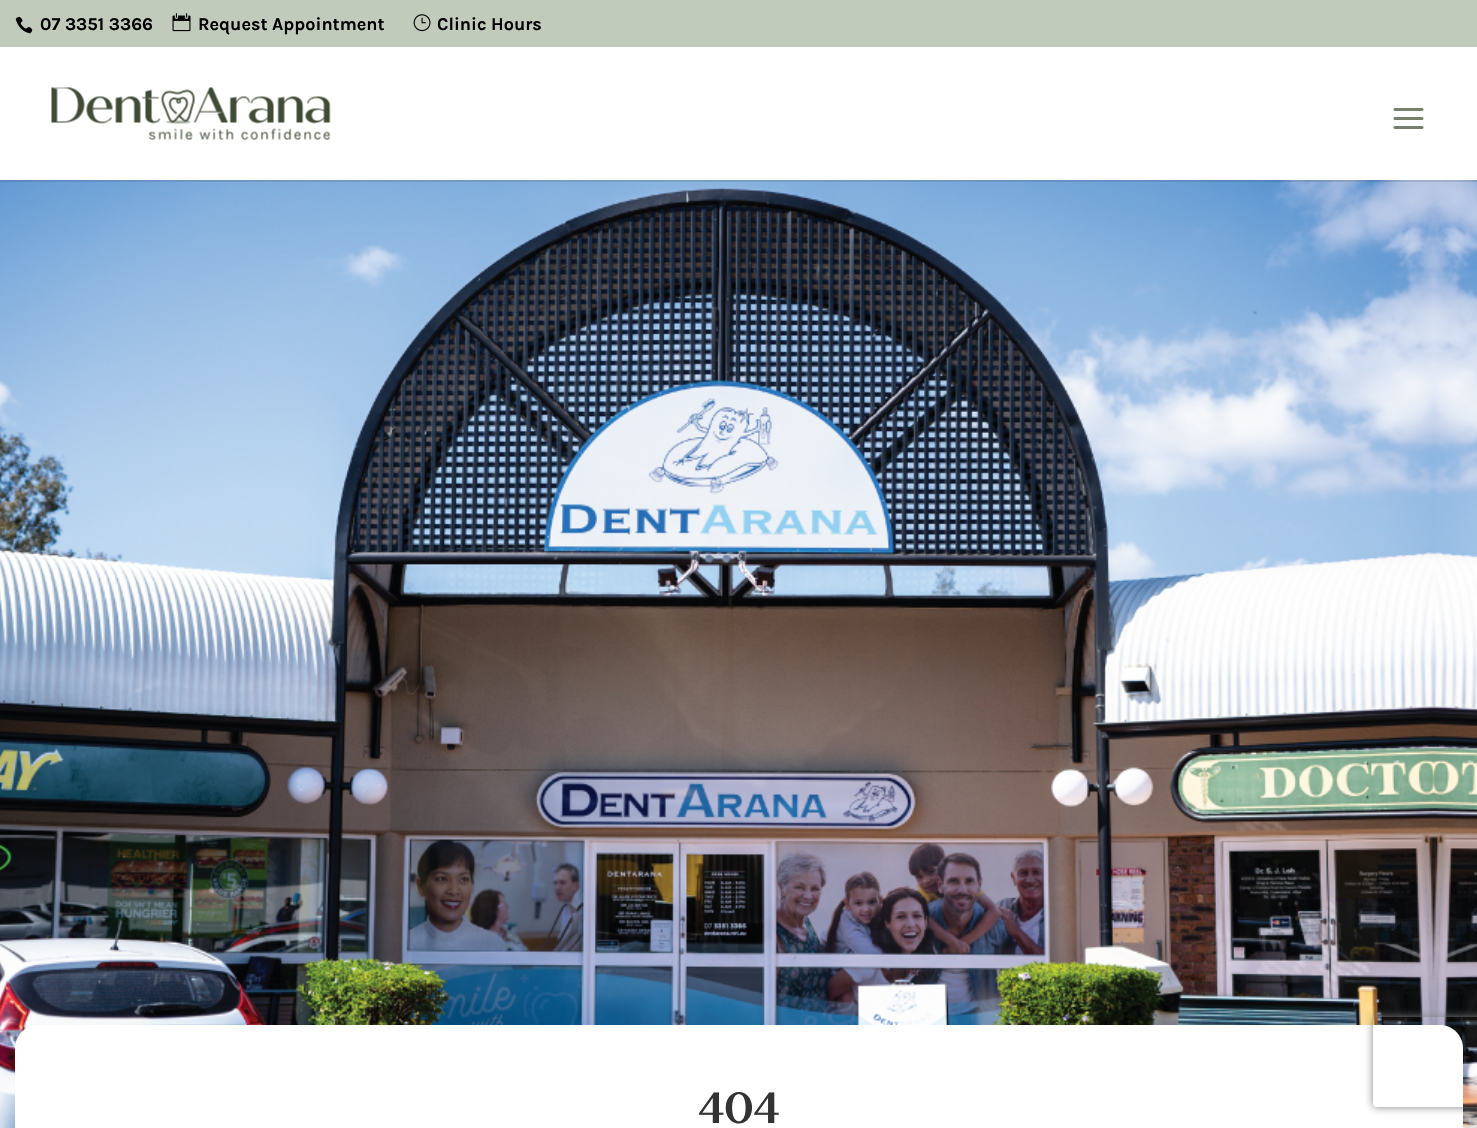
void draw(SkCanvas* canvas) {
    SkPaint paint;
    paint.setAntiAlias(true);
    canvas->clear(0xFFFFFFFF);
    paint.setColor(0xFFC0CBBB);
    canvas->drawRect(SkRect::MakeXYWH(0, 0, 1477, 47), paint);
    canvas->drawImageRect(SkImages::DeferredFromEncodedData(SkData::MakeFromFileName("img1.png")), SkRect::MakeXYWH(15, 16, 18, 18), SkSamplingOptions());
    SkFont font1(fontMgr->matchFamilyStyle("Karla", SkFontStyle::Bold()), 18);
    font1.setSubpixel(true);
    paint.setColor(0xFF000000);
    canvas->drawString("07 3351 3366", 40, 30, font1, paint);
    canvas->drawImageRect(SkImages::DeferredFromEncodedData(SkData::MakeFromFileName("img2.png")), SkRect::MakeXYWH(172, 13, 19, 19), SkSamplingOptions());
    canvas->drawString("Request Appointment", 198, 30, font1, paint);
    canvas->drawImageRect(SkImages::DeferredFromEncodedData(SkData::MakeFromFileName("img3.png")), SkRect::MakeXYWH(413, 14, 18, 18), SkSamplingOptions());
    canvas->drawString("Clinic Hours", 437, 30, font1, paint);
    canvas->drawImageRect(SkImages::DeferredFromEncodedData(SkData::MakeFromFileName("img6.png")), SkRect::MakeXYWH(0, 180, 1477, 948), SkSamplingOptions());
    paint.setColor(0x1A000000);
    canvas->drawPath(SkPathBuilder().moveTo(0, 180).lineTo(0, 182).lineTo(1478, 182).lineTo(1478, 48).lineTo(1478, 180).close().detach(), paint);
    canvas->drawImageRect(SkImages::DeferredFromEncodedData(SkData::MakeFromFileName("img4.png")), SkRect::MakeXYWH(51, 87, 280, 53), SkSamplingOptions());
    canvas->drawImageRect(SkImages::DeferredFromEncodedData(SkData::MakeFromFileName("img5.png")), SkRect::MakeXYWH(1393, 108, 31, 21), SkSamplingOptions());
    paint.setColor(0xFFFFFFFF);
    canvas->drawPath(SkPathBuilder().moveTo(38, 1025).lineTo(1440, 1025).cubicTo(1452.5f, 1025, 1463, 1035.5f, 1463, 1048).lineTo(1463, 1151).lineTo(15, 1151).lineTo(15, 1048).cubicTo(15, 1035.5f, 25.5f, 1025, 38, 1025).close().detach(), paint);
    SkFont font2(fontMgr->matchFamilyStyle("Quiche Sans", SkFontStyle::Bold()), 42);
    font2.setSubpixel(true);
    paint.setColor(0xFF333333);
    canvas->drawString("404", 698, 1123, font2, paint);
    canvas->save();
    canvas->clipPath(SkPathBuilder(SkPathFillType::kEvenOdd).moveTo(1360, 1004).lineTo(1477, 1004).lineTo(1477, 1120).lineTo(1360, 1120).close().moveTo(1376, 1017).lineTo(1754, 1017).cubicTo(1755.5f, 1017, 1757, 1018.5f, 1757, 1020).lineTo(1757, 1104).cubicTo(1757, 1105.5f, 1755.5f, 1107, 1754, 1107).lineTo(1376, 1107).cubicTo(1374.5f, 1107, 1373, 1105.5f, 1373, 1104).lineTo(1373, 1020).cubicTo(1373, 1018.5f, 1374.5f, 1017, 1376, 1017).close().detach(), true);
    paint.setColor(0xFF808080);
    paint.setMaskFilter(SkMaskFilter::MakeBlur(kNormal_SkBlurStyle, 4));
    canvas->drawRoundRect(SkRect::MakeXYWH(1373, 1017, 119, 90), 3, 3, paint);
    paint.setMaskFilter(nullptr);
    canvas->restore();
}
